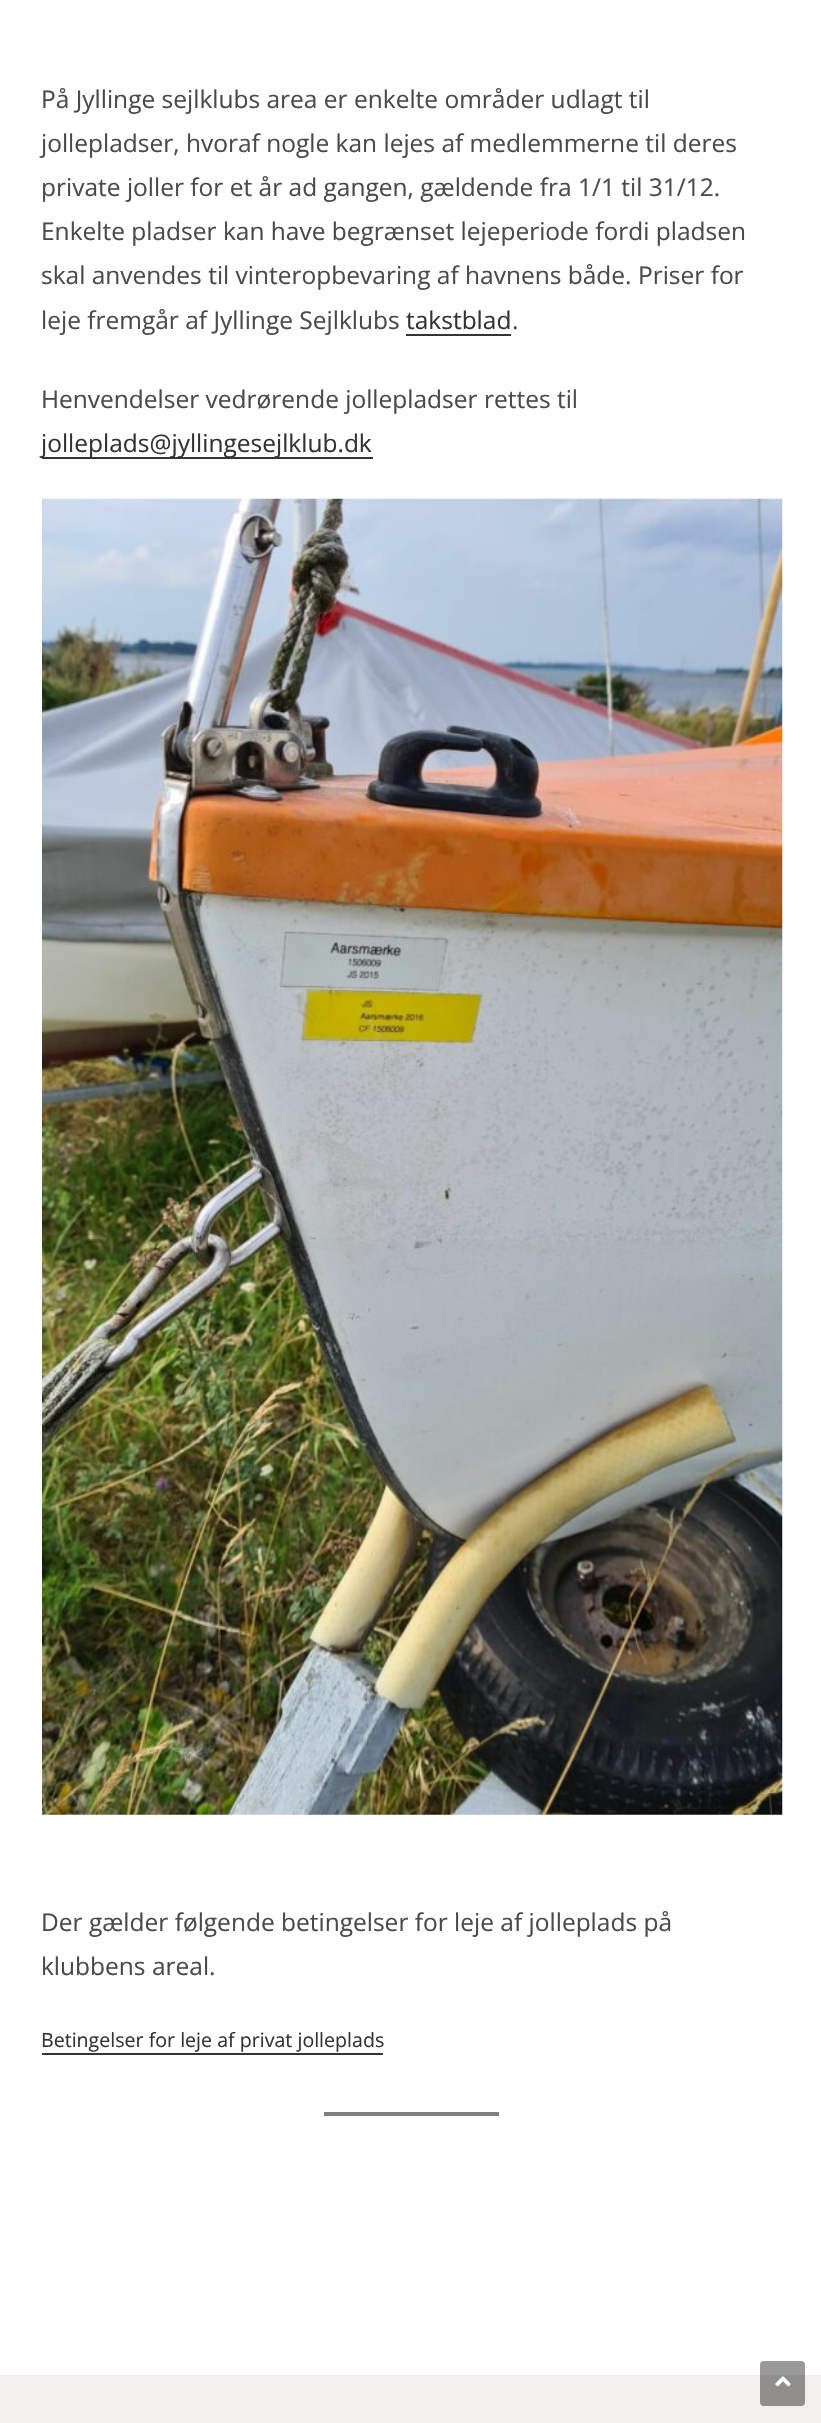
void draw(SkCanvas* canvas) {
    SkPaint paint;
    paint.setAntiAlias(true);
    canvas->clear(0xFFFFFFFF);
    SkFont font1(fontMgr->matchFamilyStyle("Open Sans", SkFontStyle::Normal()), 24.5f);
    font1.setSubpixel(true);
    paint.setColor(0xFF4A4A4A);
    canvas->drawString("På Jyllinge sejlklubs area er enkelte områder udlagt til", 41, 108, font1, paint);
    canvas->drawString("jollepladser, hvoraf nogle kan lejes af medlemmerne til deres", 41, 152, font1, paint);
    canvas->drawString("private joller for et år ad gangen, gældende fra 1/1 til 31/12.", 41, 196, font1, paint);
    canvas->drawString("Enkelte pladser kan have begrænset lejeperiode fordi pladsen", 41, 240, font1, paint);
    canvas->drawString("skal anvendes til vinteropbevaring af havnens både. Priser for", 41, 284, font1, paint);
    canvas->drawString("leje fremgår af Jyllinge Sejlklubs", 41, 329, font1, paint);
    paint.setColor(0xFF333333);
    canvas->drawString("takstblad", 406, 329, font1, paint);
    canvas->drawRect(SkRect::MakeXYWH(406, 334, 105, 2), paint);
    paint.setColor(0xFF4A4A4A);
    canvas->drawString(".", 512, 329, font1, paint);
    canvas->drawString("Henvendelser vedrørende jollepladser rettes til", 41, 408, font1, paint);
    paint.setColor(0xFF333333);
    canvas->drawRect(SkRect::MakeXYWH(42, 457, 331, 2), paint);
    canvas->drawString("jolleplads@jyllingesejlklub.dk", 41, 452, font1, paint);
    canvas->drawImageRect(SkImages::DeferredFromEncodedData(SkData::MakeFromFileName("img1.png")), SkRect::MakeXYWH(42, 498, 741, 1317), SkSamplingOptions());
    paint.setColor(0xFF4A4A4A);
    canvas->drawString("Der gælder følgende betingelser for leje af jolleplads på", 41, 1931, font1, paint);
    canvas->drawString("klubbens areal.", 41, 1975, font1, paint);
    SkFont font2(fontMgr->matchFamilyStyle("Open Sans", SkFontStyle::Normal()), 19.6f);
    font2.setSubpixel(true);
    paint.setColor(0xFF333333);
    canvas->drawString("Betingelser for leje af privat jolleplads", 41, 2047, font2, paint);
    canvas->drawRect(SkRect::MakeXYWH(42, 2053, 341, 2), paint);
    paint.setColor(0xFF808080);
    canvas->drawRect(SkRect::MakeXYWH(324, 2112, 175, 4), paint);
    paint.setColor(0xFFF2EFEC);
    canvas->drawRect(SkRect::MakeXYWH(0, 2375, 821, 48), paint);
    paint.setColor(0x66000000);
    canvas->drawRoundRect(SkRect::MakeXYWH(760, 2361, 45, 45), 4, 4, paint);
    canvas->drawImageRect(SkImages::DeferredFromEncodedData(SkData::MakeFromFileName("img2.png")), SkRect::MakeXYWH(775, 2376, 16, 11), SkSamplingOptions());
}
